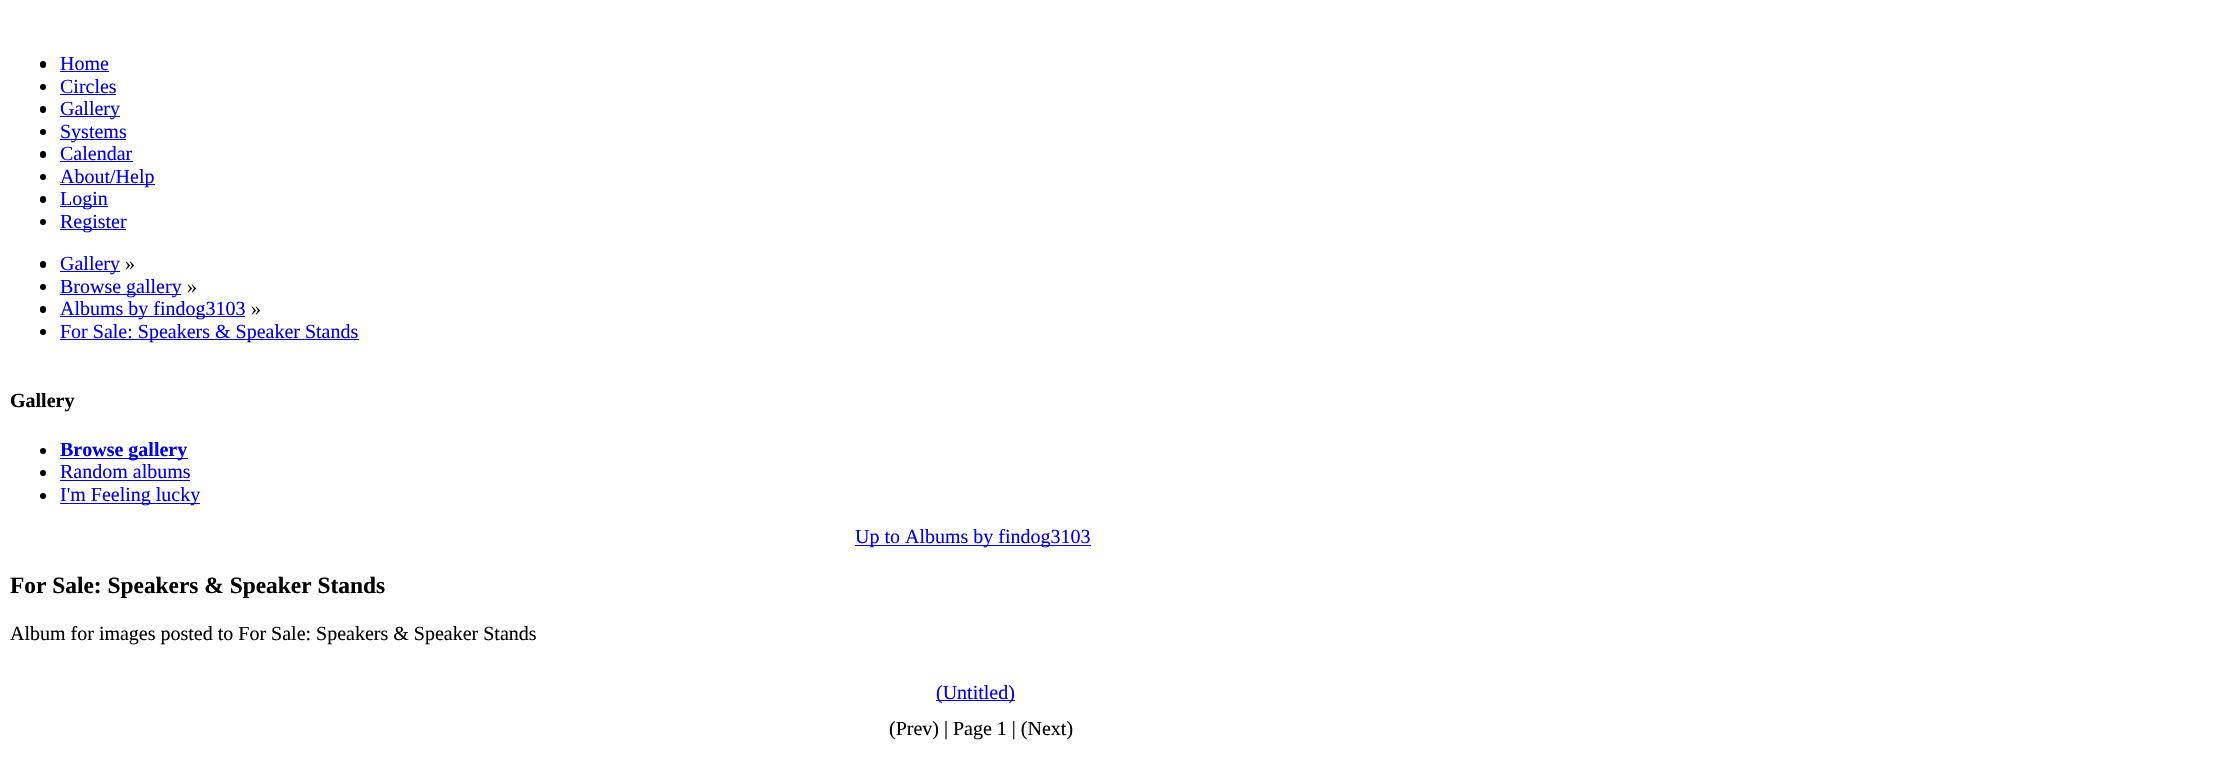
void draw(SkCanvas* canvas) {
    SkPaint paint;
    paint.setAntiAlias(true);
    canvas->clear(0xFFFFFFFF);
    paint.setColor(0xFF000000);
    canvas->drawRoundRect(SkRect::MakeXYWH(40, 61, 6, 7), 3, 3, paint);
    SkFont font1(fontMgr->matchFamilyStyle("Liberation Serif", SkFontStyle::Normal()), 20);
    font1.setSubpixel(true);
    paint.setColor(0xFF0000EE);
    canvas->drawString("Home", 60, 70, font1, paint);
    canvas->drawRect(SkRect::MakeXYWH(60, 71, 49, 1), paint);
    paint.setColor(0xFF000000);
    canvas->drawCircle(43, 87, 3, paint);
    paint.setColor(0xFF0000EE);
    canvas->drawString("Circles", 60, 93, font1, paint);
    canvas->drawRect(SkRect::MakeXYWH(60, 94, 56, 1), paint);
    paint.setColor(0xFF000000);
    canvas->drawRoundRect(SkRect::MakeXYWH(40, 106, 6, 7), 3, 3, paint);
    paint.setColor(0xFF0000EE);
    canvas->drawRect(SkRect::MakeXYWH(60, 116, 60, 1), paint);
    canvas->drawString("Gallery", 60, 115, font1, paint);
    paint.setColor(0xFF000000);
    canvas->drawCircle(43, 132, 3, paint);
    paint.setColor(0xFF0000EE);
    canvas->drawRect(SkRect::MakeXYWH(60, 139, 66, 1), paint);
    canvas->drawString("Systems", 60, 138, font1, paint);
    paint.setColor(0xFF000000);
    canvas->drawRoundRect(SkRect::MakeXYWH(40, 151, 6, 7), 3, 3, paint);
    paint.setColor(0xFF0000EE);
    canvas->drawString("Calendar", 60, 160, font1, paint);
    canvas->drawRect(SkRect::MakeXYWH(60, 161, 73, 1), paint);
    paint.setColor(0xFF000000);
    canvas->drawCircle(43, 177, 3, paint);
    paint.setColor(0xFF0000EE);
    canvas->drawRect(SkRect::MakeXYWH(60, 184, 95, 1), paint);
    canvas->drawString("About/Help", 60, 183, font1, paint);
    paint.setColor(0xFF000000);
    canvas->drawRoundRect(SkRect::MakeXYWH(40, 196, 6, 7), 3, 3, paint);
    paint.setColor(0xFF0000EE);
    canvas->drawRect(SkRect::MakeXYWH(60, 206, 48, 1), paint);
    canvas->drawString("Login", 60, 205, font1, paint);
    paint.setColor(0xFF000000);
    canvas->drawCircle(43, 222, 3, paint);
    paint.setColor(0xFF0000EE);
    canvas->drawRect(SkRect::MakeXYWH(60, 229, 66, 1), paint);
    canvas->drawString("Register", 60, 228, font1, paint);
    paint.setColor(0xFF000000);
    canvas->drawRoundRect(SkRect::MakeXYWH(40, 261, 6, 7), 3, 3, paint);
    paint.setColor(0xFF0000EE);
    canvas->drawRect(SkRect::MakeXYWH(60, 271, 60, 1), paint);
    canvas->drawString("Gallery", 60, 270, font1, paint);
    paint.setColor(0xFF000000);
    canvas->drawString("»", 125, 270, font1, paint);
    canvas->drawCircle(43, 287, 3, paint);
    paint.setColor(0xFF0000EE);
    canvas->drawRect(SkRect::MakeXYWH(60, 294, 121, 1), paint);
    canvas->drawString("Browse gallery", 60, 293, font1, paint);
    paint.setColor(0xFF000000);
    canvas->drawString("»", 187, 293, font1, paint);
    canvas->drawRoundRect(SkRect::MakeXYWH(40, 306, 6, 7), 3, 3, paint);
    paint.setColor(0xFF0000EE);
    canvas->drawRect(SkRect::MakeXYWH(60, 316, 185, 1), paint);
    canvas->drawString("Albums by findog3103", 60, 315, font1, paint);
    paint.setColor(0xFF000000);
    canvas->drawString("»", 251, 315, font1, paint);
    canvas->drawCircle(43, 332, 3, paint);
    paint.setColor(0xFF0000EE);
    canvas->drawRect(SkRect::MakeXYWH(60, 339, 299, 1), paint);
    canvas->drawString("For Sale: Speakers & Speaker Stands", 60, 338, font1, paint);
    SkFont font2(fontMgr->matchFamilyStyle("Liberation Serif", SkFontStyle::Bold()), 20);
    font2.setSubpixel(true);
    paint.setColor(0xFF000000);
    canvas->drawString("Gallery", 10, 407, font2, paint);
    canvas->drawCircle(43, 451, 3, paint);
    paint.setColor(0xFF0000EE);
    canvas->drawRect(SkRect::MakeXYWH(60, 458, 128, 1), paint);
    canvas->drawString("Browse gallery", 60, 456, font2, paint);
    paint.setColor(0xFF000000);
    canvas->drawCircle(43, 473, 3, paint);
    paint.setColor(0xFF0000EE);
    canvas->drawString("Random albums", 60, 478, font1, paint);
    canvas->drawRect(SkRect::MakeXYWH(60, 480, 130, 1), paint);
    paint.setColor(0xFF000000);
    canvas->drawCircle(43, 496, 3, paint);
    paint.setColor(0xFF0000EE);
    canvas->drawRect(SkRect::MakeXYWH(60, 503, 140, 1), paint);
    canvas->drawString("I'm Feeling lucky", 60, 501, font1, paint);
    canvas->drawRect(SkRect::MakeXYWH(855, 545, 236, 1), paint);
    canvas->drawString("Up to Albums by findog3103", 855, 543, font1, paint);
    SkFont font3(fontMgr->matchFamilyStyle("Liberation Serif", SkFontStyle::Bold()), 23.4f);
    font3.setSubpixel(true);
    paint.setColor(0xFF000000);
    canvas->drawString("For Sale: Speakers & Speaker Stands", 10, 593, font3, paint);
    canvas->drawString("Album for images posted to For Sale: Speakers & Speaker Stands", 10, 640, font1, paint);
    paint.setColor(0xFF0000EE);
    canvas->drawRect(SkRect::MakeXYWH(936, 700, 79, 1), paint);
    canvas->drawString("(Untitled)", 936, 699, font1, paint);
    paint.setColor(0xFF000000);
    canvas->drawString("(Prev) | Page 1 | (Next)", 889, 735, font1, paint);
}
